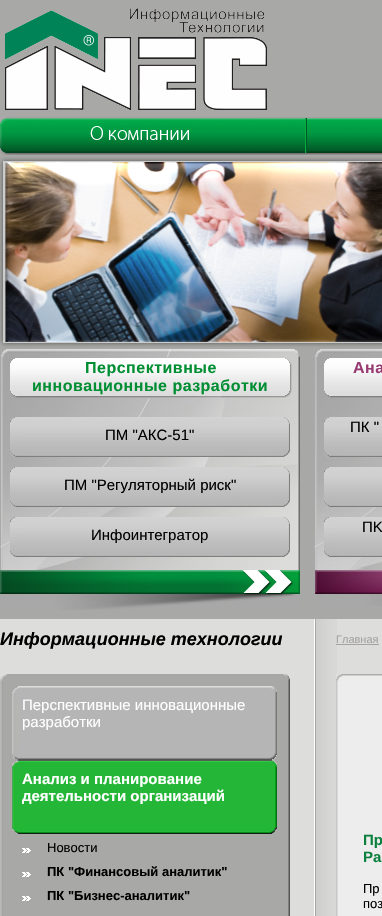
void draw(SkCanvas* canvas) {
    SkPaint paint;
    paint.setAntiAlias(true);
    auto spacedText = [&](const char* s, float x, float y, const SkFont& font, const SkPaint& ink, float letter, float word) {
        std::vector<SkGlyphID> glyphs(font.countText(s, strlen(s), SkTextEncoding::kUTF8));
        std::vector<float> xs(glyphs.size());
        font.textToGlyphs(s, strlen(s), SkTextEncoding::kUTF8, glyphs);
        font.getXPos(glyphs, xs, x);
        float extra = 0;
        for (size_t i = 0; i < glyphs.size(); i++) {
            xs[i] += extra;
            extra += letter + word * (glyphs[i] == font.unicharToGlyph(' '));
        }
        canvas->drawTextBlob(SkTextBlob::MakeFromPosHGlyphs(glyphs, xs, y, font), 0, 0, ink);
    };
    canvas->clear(0xFFA8A8A7);
    canvas->drawImageRect(SkImages::DeferredFromEncodedData(SkData::MakeFromFileName("img1.png")), SkRect::MakeXYWH(5, 8, 262, 102), SkSamplingOptions());
    canvas->drawImageRect(SkImages::DeferredFromEncodedData(SkData::MakeFromFileName("img2.png")), SkRect::MakeXYWH(0, 117, 305, 38), SkSamplingOptions());
    canvas->drawImageRect(SkImages::DeferredFromEncodedData(SkData::MakeFromFileName("img3.png")), SkRect::MakeXYWH(305, 117, 2, 38), SkSamplingOptions());
    canvas->drawImageRect(SkImages::DeferredFromEncodedData(SkData::MakeFromFileName("img4.png")), SkRect::MakeXYWH(307, 117, 75, 38), SkSamplingOptions());
    canvas->drawImageRect(SkImages::DeferredFromEncodedData(SkData::MakeFromFileName("img6.png")), SkRect::MakeXYWH(0, 349, 300, 261), SkSamplingOptions());
    canvas->drawImageRect(SkImages::DeferredFromEncodedData(SkData::MakeFromFileName("img11.png")), SkRect::MakeXYWH(314, 349, 68, 257), SkSamplingOptions());
    paint.setColor(0x80000000);
    paint.setMaskFilter(SkMaskFilter::MakeBlur(kNormal_SkBlurStyle, 2.5f));
    canvas->drawRect(SkRect::MakeXYWH(3, 161, 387, 182), paint);
    paint.setMaskFilter(nullptr);
    paint.setColor(0xFFCCCCCC);
    canvas->drawRect(SkRect::MakeXYWH(3, 161, 379, 182), paint);
    canvas->drawImageRect(SkImages::DeferredFromEncodedData(SkData::MakeFromFileName("img5.png")), SkRect::MakeXYWH(5, 162, 377, 180), SkSamplingOptions());
    canvas->drawImageRect(SkImages::DeferredFromEncodedData(SkData::MakeFromFileName("img7.png")), SkRect::MakeXYWH(10, 357, 282, 41), SkSamplingOptions());
    SkFont font1(fontMgr->matchFamilyStyle("Liberation Sans", SkFontStyle::Bold()), 16);
    font1.setSubpixel(true);
    paint.setColor(0xFF008E32);
    spacedText("Перспективные", 85, 373, font1, paint, 0.5f, 0);
    spacedText("инновационные разработки", 32, 391, font1, paint, 0.5f, 0);
    canvas->drawImageRect(SkImages::DeferredFromEncodedData(SkData::MakeFromFileName("img8.png")), SkRect::MakeXYWH(10, 417, 280, 40), SkSamplingOptions());
    SkFont font2(fontMgr->matchFamilyStyle("Liberation Sans", SkFontStyle::Normal()), 15);
    font2.setSubpixel(true);
    paint.setColor(0xFF000000);
    canvas->drawString("ПМ \"АКС-51\"", 105, 440, font2, paint);
    canvas->drawImageRect(SkImages::DeferredFromEncodedData(SkData::MakeFromFileName("img9.png")), SkRect::MakeXYWH(10, 467, 280, 40), SkSamplingOptions());
    canvas->drawString("ПМ \"Регуляторный риск\"", 64, 490, font2, paint);
    canvas->drawImageRect(SkImages::DeferredFromEncodedData(SkData::MakeFromFileName("img10.png")), SkRect::MakeXYWH(10, 517, 280, 40), SkSamplingOptions());
    canvas->drawString("Инфоинтегратор", 91, 540, font2, paint);
    canvas->drawImageRect(SkImages::DeferredFromEncodedData(SkData::MakeFromFileName("img12.png")), SkRect::MakeXYWH(324, 358, 58, 40), SkSamplingOptions());
    paint.setColor(0xFF983B72);
    spacedText("Ана", 353, 373, font1, paint, 0.5f, 0);
    canvas->drawImageRect(SkImages::DeferredFromEncodedData(SkData::MakeFromFileName("img13.png")), SkRect::MakeXYWH(324, 417, 58, 40), SkSamplingOptions());
    paint.setColor(0xFF000000);
    canvas->drawString("ПК \"", 350, 432, font2, paint);
    canvas->drawImageRect(SkImages::DeferredFromEncodedData(SkData::MakeFromFileName("img14.png")), SkRect::MakeXYWH(324, 467, 58, 40), SkSamplingOptions());
    canvas->drawImageRect(SkImages::DeferredFromEncodedData(SkData::MakeFromFileName("img15.png")), SkRect::MakeXYWH(324, 517, 58, 40), SkSamplingOptions());
    canvas->drawString("ПK", 362, 532, font2, paint);
    paint.setColor(0xFFDDDDDC);
    canvas->drawRect(SkRect::MakeXYWH(0, 619, 382, 297), paint);
    SkFont font3(fontMgr->matchFamilyStyle("Liberation Sans", SkFontStyle::BoldItalic()), 18);
    font3.setSubpixel(true);
    paint.setColor(0xFF000000);
    canvas->drawString("Информационные технологии", 0, 645, font3, paint);
    canvas->drawImageRect(SkImages::DeferredFromEncodedData(SkData::MakeFromFileName("img16.png")), SkRect::MakeXYWH(314, 619, 23, 55), SkSamplingOptions());
    SkFont font4(fontMgr->matchFamilyStyle("Liberation Sans", SkFontStyle::Normal()), 11);
    font4.setSubpixel(true);
    paint.setColor(0xFFA5A3A2);
    canvas->drawString("Главная", 336, 643, font4, paint);
    paint.setColor(0x806E6969);
    canvas->drawRect(SkRect::MakeXYWH(336, 644, 43, 1), paint);
    canvas->drawImageRect(SkImages::DeferredFromEncodedData(SkData::MakeFromFileName("img17.png")), SkRect::MakeXYWH(0, 674, 7, 7), SkSamplingOptions());
    paint.setColor(0xFFA8A8A7);
    canvas->drawRect(SkRect::MakeXYWH(7, 674, 276, 242), paint);
    canvas->drawImageRect(SkImages::DeferredFromEncodedData(SkData::MakeFromFileName("img18.png")), SkRect::MakeXYWH(283, 674, 7, 7), SkSamplingOptions());
    canvas->drawImageRect(SkImages::DeferredFromEncodedData(SkData::MakeFromFileName("img19.png")), SkRect::MakeXYWH(0, 681, 7, 235), SkSamplingOptions());
    canvas->drawImageRect(SkImages::DeferredFromEncodedData(SkData::MakeFromFileName("img20.png")), SkRect::MakeXYWH(12, 686, 265, 74), SkSamplingOptions());
    paint.setColor(0xFFFFFFFF);
    canvas->drawString("Перспективные инновационные", 22, 710, font2, paint);
    canvas->drawString("разработки", 22, 727, font2, paint);
    canvas->drawImageRect(SkImages::DeferredFromEncodedData(SkData::MakeFromFileName("img21.png")), SkRect::MakeXYWH(12, 760, 265, 74), SkSamplingOptions());
    SkFont font5(fontMgr->matchFamilyStyle("Liberation Sans", SkFontStyle::Bold()), 15);
    font5.setSubpixel(true);
    canvas->drawString("Анализ и планирование", 22, 784, font5, paint);
    canvas->drawString("деятельности организаций", 22, 801, font5, paint);
    canvas->drawImageRect(SkImages::DeferredFromEncodedData(SkData::MakeFromFileName("img22.png")), SkRect::MakeXYWH(22, 848, 9, 5), SkSamplingOptions());
    SkFont font6(fontMgr->matchFamilyStyle("Liberation Sans", SkFontStyle::Normal()), 13);
    font6.setSubpixel(true);
    paint.setColor(0xFF000000);
    canvas->drawString("Новости", 47, 852, font6, paint);
    canvas->drawImageRect(SkImages::DeferredFromEncodedData(SkData::MakeFromFileName("img22.png")), SkRect::MakeXYWH(22, 872, 9, 5), SkSamplingOptions());
    SkFont font7(fontMgr->matchFamilyStyle("Liberation Sans", SkFontStyle::Bold()), 13);
    font7.setSubpixel(true);
    canvas->drawString("ПК \"Финансовый аналитик\"", 47, 876, font7, paint);
    canvas->drawImageRect(SkImages::DeferredFromEncodedData(SkData::MakeFromFileName("img22.png")), SkRect::MakeXYWH(22, 896, 9, 5), SkSamplingOptions());
    canvas->drawString("ПК \"Бизнес-аналитик\"", 47, 900, font7, paint);
    canvas->drawImageRect(SkImages::DeferredFromEncodedData(SkData::MakeFromFileName("img23.png")), SkRect::MakeXYWH(283, 681, 7, 235), SkSamplingOptions());
    canvas->drawImageRect(SkImages::DeferredFromEncodedData(SkData::MakeFromFileName("img24.png")), SkRect::MakeXYWH(314, 674, 22, 242), SkSamplingOptions());
    canvas->drawImageRect(SkImages::DeferredFromEncodedData(SkData::MakeFromFileName("img25.png")), SkRect::MakeXYWH(336, 674, 7, 7), SkSamplingOptions());
    canvas->drawImageRect(SkImages::DeferredFromEncodedData(SkData::MakeFromFileName("img26.png")), SkRect::MakeXYWH(343, 674, 39, 7), SkSamplingOptions());
    canvas->drawImageRect(SkImages::DeferredFromEncodedData(SkData::MakeFromFileName("img27.png")), SkRect::MakeXYWH(336, 681, 7, 235), SkSamplingOptions());
    paint.setColor(0xFFEDEDED);
    canvas->drawRect(SkRect::MakeXYWH(343, 681, 39, 235), paint);
    paint.setColor(0xFF0C803E);
    canvas->drawString("Пр", 363, 845, font5, paint);
    canvas->drawString("Ра", 363, 862, font5, paint);
    paint.setColor(0xFF000000);
    spacedText("Пр", 363, 893, font6, paint, 0, 16);
    spacedText("поз", 363, 908, font6, paint, 0, 8);
}
